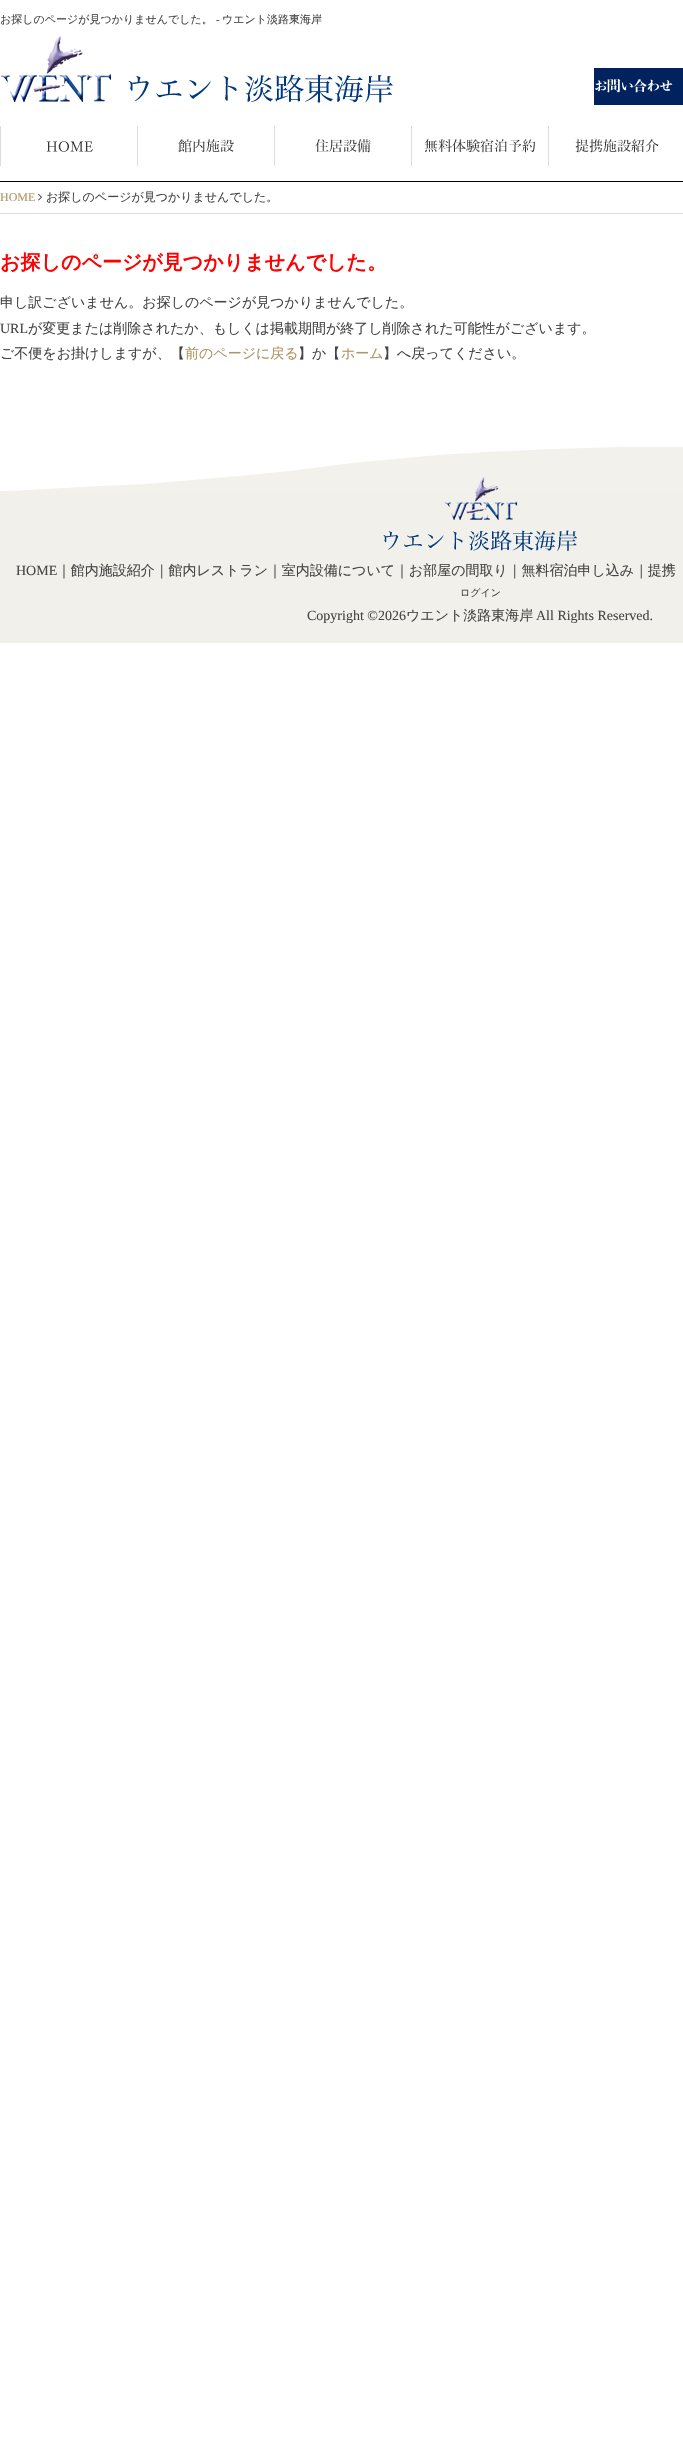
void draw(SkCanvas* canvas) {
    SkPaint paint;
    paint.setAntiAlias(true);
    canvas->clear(0xFFFFFFFF);
    SkFont font1(fontMgr->matchFamilyStyle("WenQuanYi Zen Hei", SkFontStyle(500, SkFontStyle::kNormal_Width, SkFontStyle::kUpright_Slant)), 11);
    font1.setSubpixel(true);
    paint.setColor(0xFF444444);
    canvas->drawString("お探しのページが見つかりませんでした。", 0, 23, font1, paint);
    SkFont font2(fontMgr->matchFamilyStyle("Liberation Serif", SkFontStyle::Normal()), 11);
    font2.setSubpixel(true);
    canvas->drawString("-", 216, 23, font2, paint);
    canvas->drawString("ウエント淡路東海岸", 222, 23, font1, paint);
    canvas->drawImageRect(SkImages::DeferredFromEncodedData(SkData::MakeFromFileName("img1.png")), SkRect::MakeXYWH(1, 36, 392, 67), SkSamplingOptions());
    canvas->drawImageRect(SkImages::DeferredFromEncodedData(SkData::MakeFromFileName("img2.png")), SkRect::MakeXYWH(594, 68, 89, 37), SkSamplingOptions());
    canvas->drawImageRect(SkImages::DeferredFromEncodedData(SkData::MakeFromFileName("img3.png")), SkRect::MakeXYWH(0, 126, 138, 40), SkSamplingOptions());
    canvas->drawImageRect(SkImages::DeferredFromEncodedData(SkData::MakeFromFileName("img4.png")), SkRect::MakeXYWH(178, 126, 97, 40), SkSamplingOptions());
    canvas->drawImageRect(SkImages::DeferredFromEncodedData(SkData::MakeFromFileName("img5.png")), SkRect::MakeXYWH(315, 126, 97, 40), SkSamplingOptions());
    canvas->drawImageRect(SkImages::DeferredFromEncodedData(SkData::MakeFromFileName("img6.png")), SkRect::MakeXYWH(424, 126, 125, 40), SkSamplingOptions());
    canvas->drawImageRect(SkImages::DeferredFromEncodedData(SkData::MakeFromFileName("img7.png")), SkRect::MakeXYWH(575, 139, 84, 14), SkSamplingOptions());
    paint.setColor(0xFF000000);
    canvas->drawRect(SkRect::MakeXYWH(0, 181, 683, 1), paint);
    paint.setColor(0xFFDDDDDD);
    canvas->drawRect(SkRect::MakeXYWH(0, 213, 683, 1), paint);
    SkFont font3(fontMgr->matchFamilyStyle("Liberation Serif", SkFontStyle::Normal()), 12);
    font3.setSubpixel(true);
    paint.setColor(0xFFAF9463);
    canvas->drawString("HOME", 0, 201, font3, paint);
    canvas->drawImageRect(SkImages::DeferredFromEncodedData(SkData::MakeFromFileName("img8.png")), SkRect::MakeXYWH(38, 193, 4, 8), SkSamplingOptions());
    SkFont font4(fontMgr->matchFamilyStyle("WenQuanYi Zen Hei", SkFontStyle(500, SkFontStyle::kNormal_Width, SkFontStyle::kUpright_Slant)), 12);
    font4.setSubpixel(true);
    paint.setColor(0xFF444444);
    canvas->drawString("お探しのページが見つかりませんでした。", 46, 201, font4, paint);
    SkFont font5(fontMgr->matchFamilyStyle("WenQuanYi Zen Hei", SkFontStyle::Bold()), 20);
    font5.setSubpixel(true);
    paint.setColor(0xFFFF0000);
    canvas->drawString("お探しのページが見つかりませんでした。", 0, 269, font5, paint);
    SkFont font6(fontMgr->matchFamilyStyle("WenQuanYi Zen Hei", SkFontStyle(500, SkFontStyle::kNormal_Width, SkFontStyle::kUpright_Slant)), 14);
    font6.setSubpixel(true);
    paint.setColor(0xFF444444);
    canvas->drawString("申し訳ございません。お探しのページが見つかりませんでした。", 0, 307, font6, paint);
    SkFont font7(fontMgr->matchFamilyStyle("Liberation Serif", SkFontStyle::Normal()), 14);
    font7.setSubpixel(true);
    canvas->drawString("URL", 0, 333, font7, paint);
    canvas->drawString("が変更または削除されたか、もしくは掲載期間が終了し削除された可能性がございます。", 28, 333, font6, paint);
    canvas->drawString("ご不便をお掛けしますが、【", 0, 358, font6, paint);
    paint.setColor(0xFFAF9463);
    canvas->drawString("前のページに戻る", 185, 358, font6, paint);
    paint.setColor(0xFF444444);
    canvas->drawString("】か【", 298, 358, font6, paint);
    paint.setColor(0xFFAF9463);
    canvas->drawString("ホーム", 341, 358, font6, paint);
    paint.setColor(0xFF444444);
    canvas->drawString("】へ戻ってください。", 383, 358, font6, paint);
    canvas->drawImageRect(SkImages::DeferredFromEncodedData(SkData::MakeFromFileName("img9.png")), SkRect::MakeXYWH(0, 446, 683, 45), SkSamplingOptions());
    paint.setColor(0xFFF2F0EA);
    canvas->drawRect(SkRect::MakeXYWH(0, 491, 683, 152), paint);
    canvas->drawImageRect(SkImages::DeferredFromEncodedData(SkData::MakeFromFileName("img10.png")), SkRect::MakeXYWH(383, 477, 195, 74), SkSamplingOptions());
    paint.setColor(0xFF444444);
    canvas->drawString("HOME", 16, 575, font7, paint);
    canvas->drawString("｜館内施設紹介｜館内レストラン｜室内設備について｜お部屋の間取り｜無料宿泊申し込み｜提携", 57, 575, font6, paint);
    SkFont font8(fontMgr->matchFamilyStyle("WenQuanYi Zen Hei", SkFontStyle(500, SkFontStyle::kNormal_Width, SkFontStyle::kUpright_Slant)), 10);
    font8.setSubpixel(true);
    canvas->drawString("ログイン", 460, 596, font8, paint);
    canvas->drawString("Copyright ©2026", 307, 620, font7, paint);
    canvas->drawString("ウエント淡路東海岸", 406, 620, font6, paint);
    canvas->drawString("All Rights Reserved.", 536, 620, font7, paint);
}
